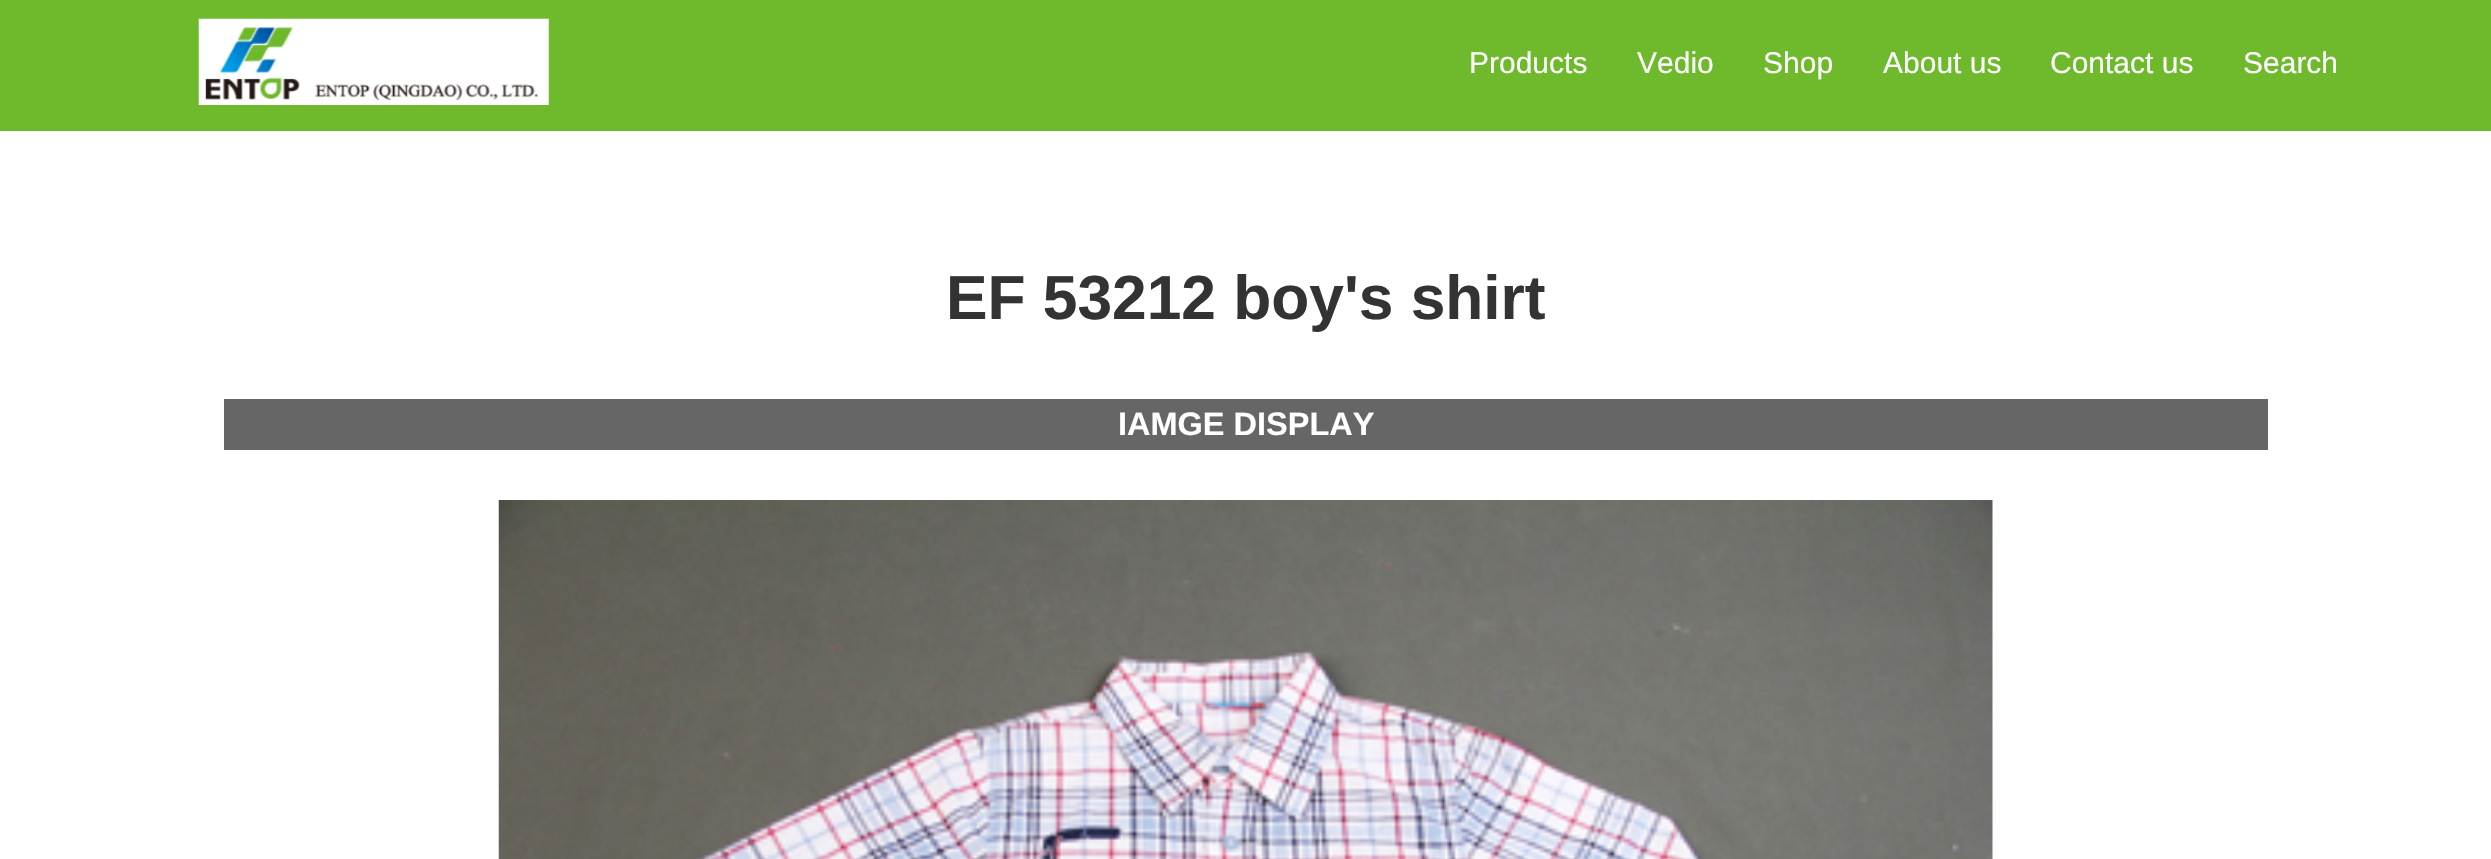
void draw(SkCanvas* canvas) {
    SkPaint paint;
    paint.setAntiAlias(true);
    canvas->clear(0xFFFFFFFF);
    paint.setColor(0xFF6FBA2C);
    canvas->drawRect(SkRect::MakeXYWH(0, 0, 2491, 131), paint);
    canvas->drawImageRect(SkImages::DeferredFromEncodedData(SkData::MakeFromFileName("img1.png")), SkRect::MakeXYWH(198, 18, 351, 87), SkSamplingOptions());
    SkFont font1(fontMgr->matchFamilyStyle("Liberation Sans", SkFontStyle::Normal()), 30);
    font1.setSubpixel(true);
    paint.setColor(0xFFFFFFFF);
    canvas->drawString("Products", 1469, 73, font1, paint);
    canvas->drawString("Vedio", 1637, 73, font1, paint);
    canvas->drawString("Shop", 1763, 73, font1, paint);
    canvas->drawString("About us", 1883, 73, font1, paint);
    canvas->drawString("Contact us", 2050, 73, font1, paint);
    canvas->drawString("Search", 2243, 73, font1, paint);
    SkFont font2(fontMgr->matchFamilyStyle("Liberation Sans", SkFontStyle::Bold()), 62.25f);
    font2.setSubpixel(true);
    paint.setColor(0xFF333333);
    canvas->drawString("EF 53212 boy's shirt", 946, 319, font2, paint);
    paint.setColor(0xFF666666);
    canvas->drawRect(SkRect::MakeXYWH(224, 399, 2044, 51), paint);
    SkFont font3(fontMgr->matchFamilyStyle("Liberation Sans", SkFontStyle::Bold()), 32.5f);
    font3.setSubpixel(true);
    paint.setColor(0xFFFFFFFF);
    canvas->drawString("IAMGE DISPLAY", 1118, 435, font3, paint);
    canvas->drawImageRect(SkImages::DeferredFromEncodedData(SkData::MakeFromFileName("img2.png")), SkRect::MakeXYWH(498, 500, 1495, 359), SkSamplingOptions());
}
